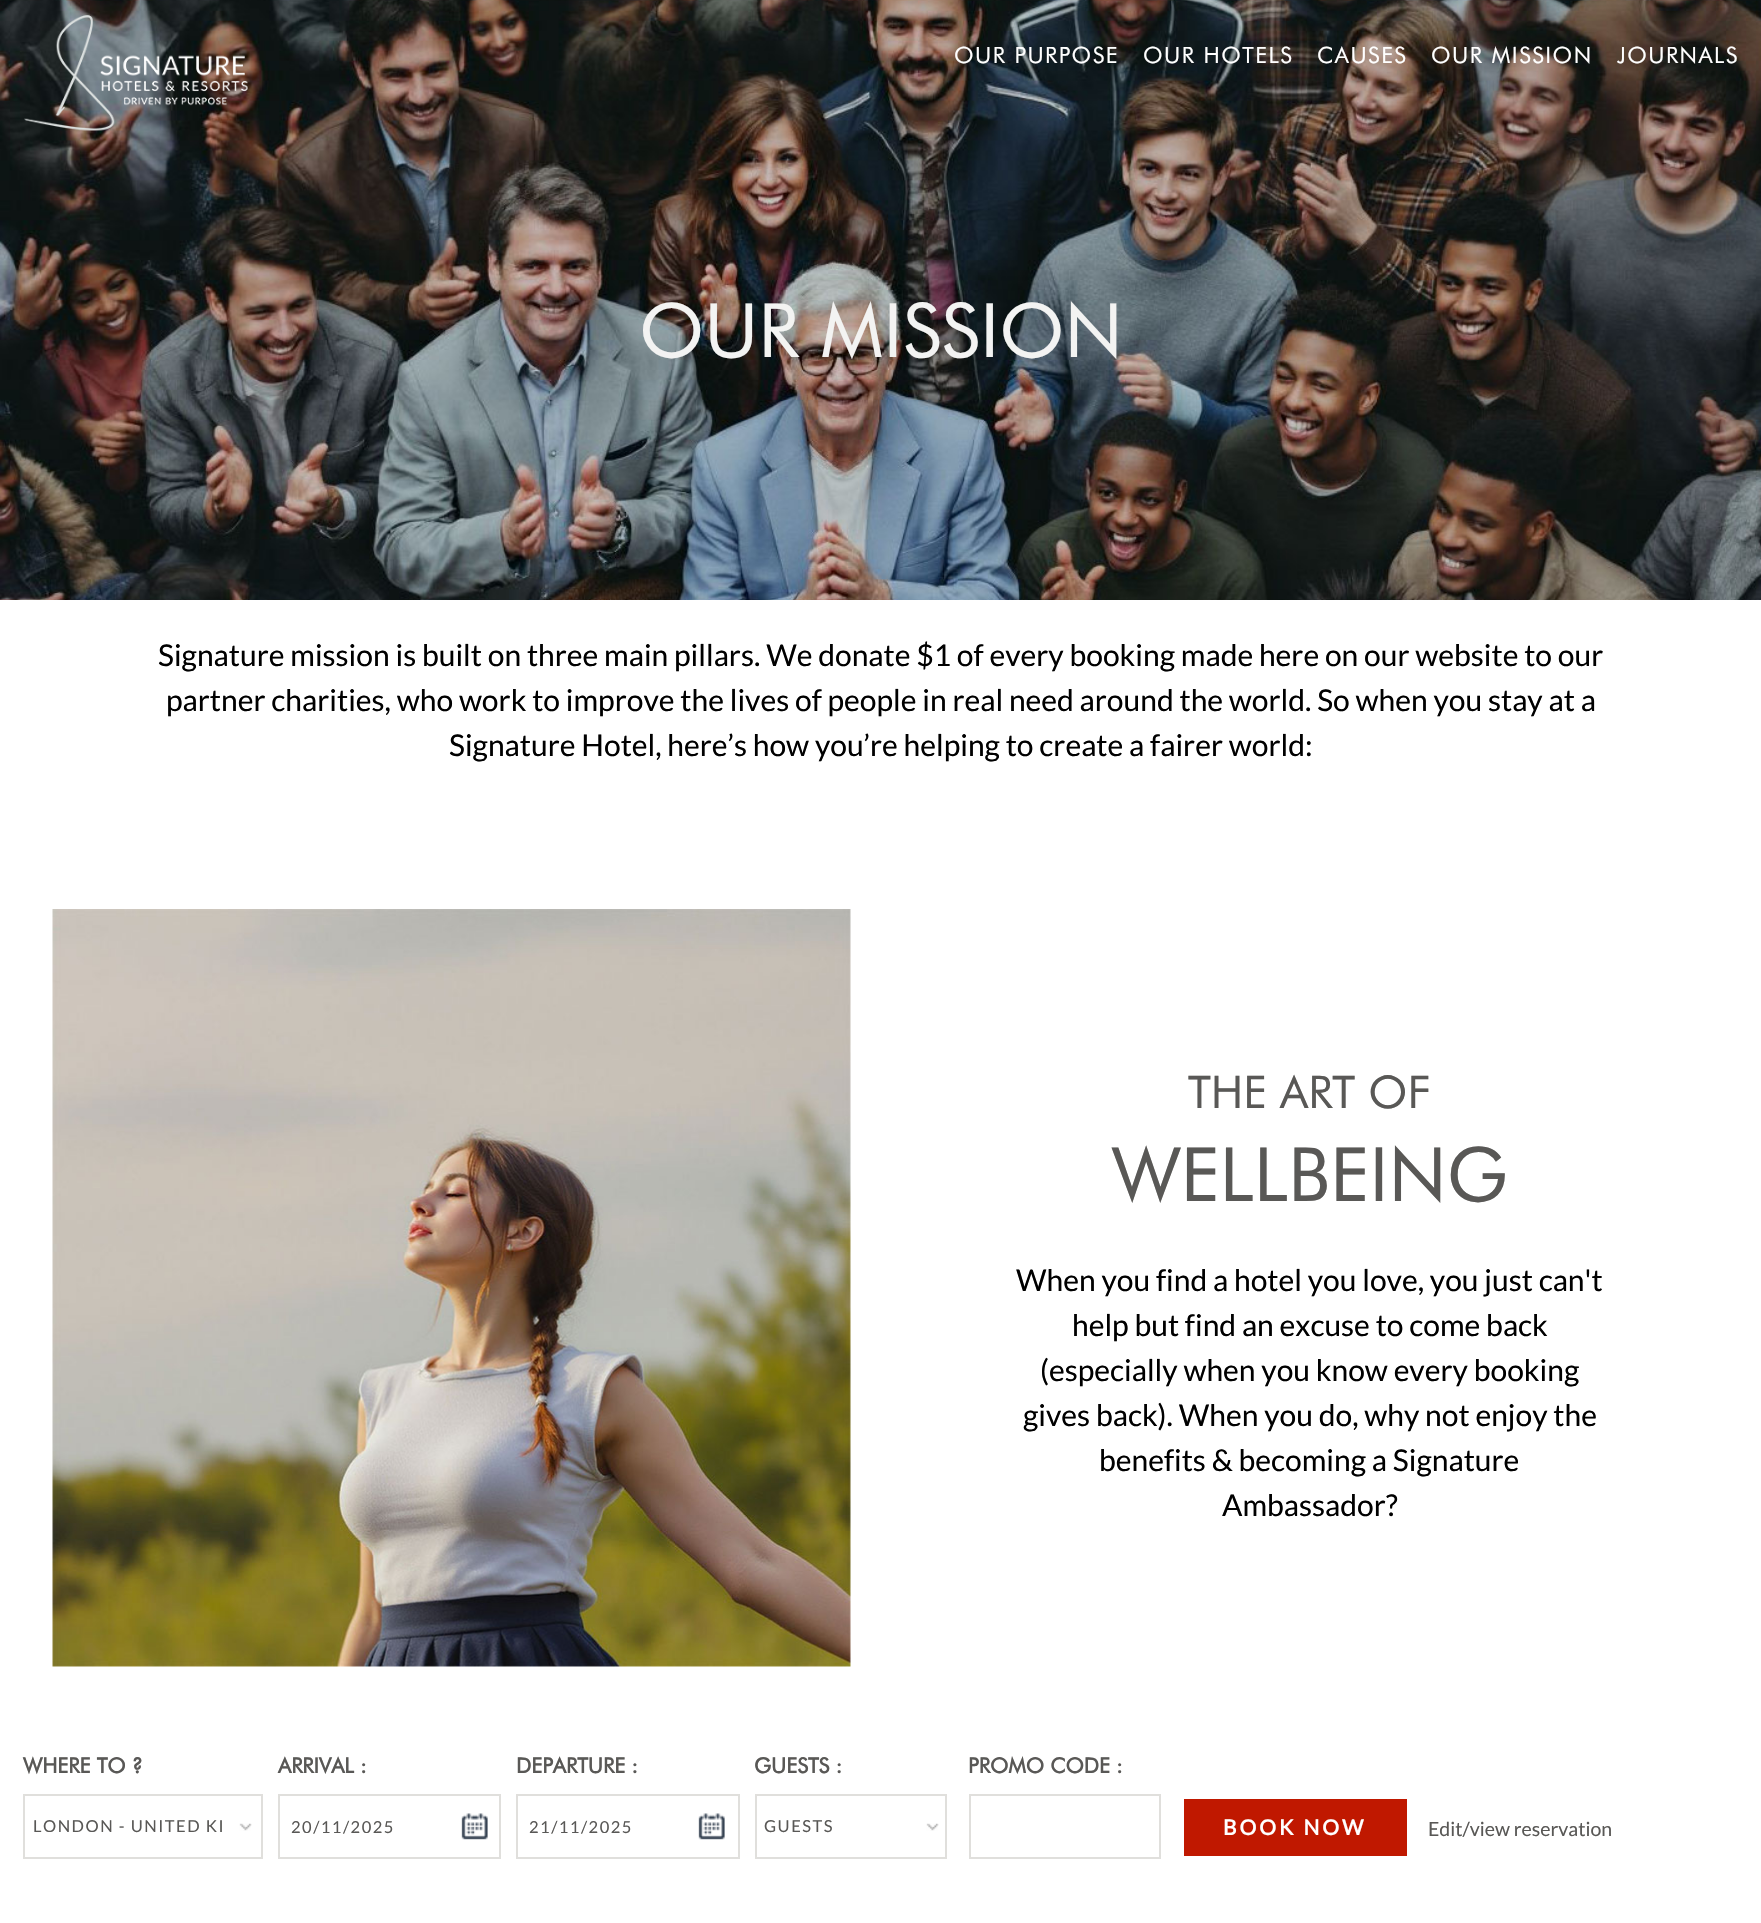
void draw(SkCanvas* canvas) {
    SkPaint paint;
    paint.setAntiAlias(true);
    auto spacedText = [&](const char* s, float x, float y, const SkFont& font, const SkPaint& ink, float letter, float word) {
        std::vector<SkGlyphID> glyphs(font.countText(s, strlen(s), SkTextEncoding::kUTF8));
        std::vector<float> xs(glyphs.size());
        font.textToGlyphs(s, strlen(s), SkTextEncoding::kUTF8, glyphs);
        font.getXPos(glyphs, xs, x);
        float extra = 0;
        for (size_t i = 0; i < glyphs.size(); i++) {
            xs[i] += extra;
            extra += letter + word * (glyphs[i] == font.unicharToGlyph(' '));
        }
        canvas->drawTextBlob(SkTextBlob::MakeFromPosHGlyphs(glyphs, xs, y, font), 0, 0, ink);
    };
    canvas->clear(0xFFFFFFFF);
    canvas->drawImageRect(SkImages::DeferredFromEncodedData(SkData::MakeFromFileName("img2.png")), SkRect::MakeXYWH(0, 0, 1761, 600), SkSamplingOptions());
    canvas->drawImageRect(SkImages::DeferredFromEncodedData(SkData::MakeFromFileName("img1.png")), SkRect::MakeXYWH(24, 15, 224, 116), SkSamplingOptions());
    SkFont font1(fontMgr->matchFamilyStyle("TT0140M", SkFontStyle::Normal()), 22.5f);
    font1.setSubpixel(true);
    paint.setColor(0xFFFFFFFF);
    spacedText("OUR PURPOSE", 954, 63, font1, paint, 1.5f, 0);
    spacedText("OUR HOTELS", 1143, 63, font1, paint, 1.5f, 0);
    spacedText("CAUSES", 1317, 63, font1, paint, 1.5f, 0);
    spacedText("OUR MISSION", 1431, 63, font1, paint, 1.5f, 0);
    spacedText("JOURNALS", 1617, 63, font1, paint, 1.5f, 0);
    SkFont font2(fontMgr->matchFamilyStyle("TT0140M", SkFontStyle::Normal()), 75);
    font2.setSubpixel(true);
    paint.setColor(0xFFF3F3F2);
    canvas->drawString("OUR MISSION", 639, 357, font2, paint);
    SkFont font3(fontMgr->matchFamilyStyle("TT0140M", SkFontStyle::Bold()), 21);
    font3.setSubpixel(true);
    paint.setColor(0xFF595856);
    canvas->drawString("WHERE TO ?", 23, 1773, font3, paint);
    canvas->drawImageRect(SkImages::DeferredFromEncodedData(SkData::MakeFromFileName("img3.png")), SkRect::MakeXYWH(239, 1823, 13, 8), SkSamplingOptions());
    paint.setStyle(SkPaint::kStroke_Style);
    paint.setStrokeWidth(2);
    paint.setColor(0xFFE0DFDC);
    canvas->drawRect(SkRect::MakeXYWH(24, 1795, 238, 63), paint);
    SkFont font4(fontMgr->matchFamilyStyle("Lato", SkFontStyle::Normal()), 16.5f);
    font4.setSubpixel(true);
    paint.setStyle(SkPaint::kFill_Style);
    paint.setColor(0xFF595856);
    spacedText("LONDON - UNITED KI", 33, 1832, font4, paint, 1.5f, 0);
    canvas->drawString("ARRIVAL :", 278, 1773, font3, paint);
    canvas->drawImageRect(SkImages::DeferredFromEncodedData(SkData::MakeFromFileName("img4.png")), SkRect::MakeXYWH(461, 1813, 27, 27), SkSamplingOptions());
    paint.setStyle(SkPaint::kStroke_Style);
    paint.setColor(0xFFE0DFDC);
    canvas->drawRect(SkRect::MakeXYWH(279, 1795, 221, 63), paint);
    paint.setStyle(SkPaint::kFill_Style);
    paint.setColor(0xFF595856);
    spacedText("20/11/2025", 291, 1833, font4, paint, 1.5f, 0);
    canvas->drawString("DEPARTURE :", 516, 1773, font3, paint);
    canvas->drawImageRect(SkImages::DeferredFromEncodedData(SkData::MakeFromFileName("img4.png")), SkRect::MakeXYWH(698, 1813, 27, 27), SkSamplingOptions());
    paint.setStyle(SkPaint::kStroke_Style);
    paint.setColor(0xFFE0DFDC);
    canvas->drawRect(SkRect::MakeXYWH(517, 1795, 222, 63), paint);
    paint.setStyle(SkPaint::kFill_Style);
    paint.setColor(0xFF595856);
    spacedText("21/11/2025", 529, 1833, font4, paint, 1.5f, 0);
    canvas->drawString("GUESTS :", 754, 1773, font3, paint);
    canvas->drawImageRect(SkImages::DeferredFromEncodedData(SkData::MakeFromFileName("img5.png")), SkRect::MakeXYWH(926, 1823, 13, 8), SkSamplingOptions());
    paint.setStyle(SkPaint::kStroke_Style);
    paint.setColor(0xFFE0DFDC);
    canvas->drawRect(SkRect::MakeXYWH(756, 1795, 190, 63), paint);
    paint.setStyle(SkPaint::kFill_Style);
    paint.setColor(0xFF595856);
    spacedText("GUESTS", 764, 1832, font4, paint, 1.5f, 0);
    canvas->drawString("PROMO CODE :", 968, 1773, font3, paint);
    paint.setStyle(SkPaint::kStroke_Style);
    paint.setColor(0xFFE0DFDC);
    canvas->drawRect(SkRect::MakeXYWH(970, 1795, 190, 63), paint);
    paint.setStyle(SkPaint::kFill_Style);
    paint.setColor(0xFFC01800);
    canvas->drawRect(SkRect::MakeXYWH(1184, 1799, 223, 57), paint);
    SkFont font5(fontMgr->matchFamilyStyle("Lato", SkFontStyle::Bold()), 21);
    font5.setSubpixel(true);
    paint.setColor(0xFFFFFFFF);
    spacedText("BOOK NOW", 1223, 1835, font5, paint, 3, 0);
    SkFont font6(fontMgr->matchFamilyStyle("Lato", SkFontStyle::Normal()), 19.5f);
    font6.setSubpixel(true);
    paint.setColor(0xFF595856);
    canvas->drawString("Edit/view reservation", 1428, 1836, font6, paint);
    SkFont font7(fontMgr->matchFamilyStyle("Lato", SkFontStyle::Normal()), 30);
    font7.setSubpixel(true);
    paint.setColor(0xFF000000);
    canvas->drawString("Signature mission is built on three main pillars. We donate $1 of every booking made here on our website to our", 158, 666, font7, paint);
    canvas->drawString("partner charities, who work to improve the lives of people in real need around the world. So when you stay at a", 166, 711, font7, paint);
    canvas->drawString("Signature Hotel, here’s how you’re helping to create a fairer world:", 449, 756, font7, paint);
    canvas->drawImageRect(SkImages::DeferredFromEncodedData(SkData::MakeFromFileName("img6.png")), SkRect::MakeXYWH(52, 909, 799, 758), SkSamplingOptions());
    SkFont font8(fontMgr->matchFamilyStyle("TT0140M", SkFontStyle::Normal()), 45);
    font8.setSubpixel(true);
    paint.setColor(0xFF595856);
    canvas->drawString("THE ART OF", 1188, 1108, font8, paint);
    canvas->drawString("WELLBEING", 1112, 1201, font2, paint);
    paint.setColor(0xFF000000);
    canvas->drawString("When you find a hotel you love, you just can't", 1016, 1291, font7, paint);
    canvas->drawString("help but find an excuse to come back", 1072, 1336, font7, paint);
    canvas->drawString("(especially when you know every booking", 1040, 1381, font7, paint);
    canvas->drawString("gives back). When you do, why not enjoy the", 1023, 1426, font7, paint);
    canvas->drawString("benefits & becoming a Signature", 1099, 1471, font7, paint);
    canvas->drawString("Ambassador?", 1222, 1516, font7, paint);
}
